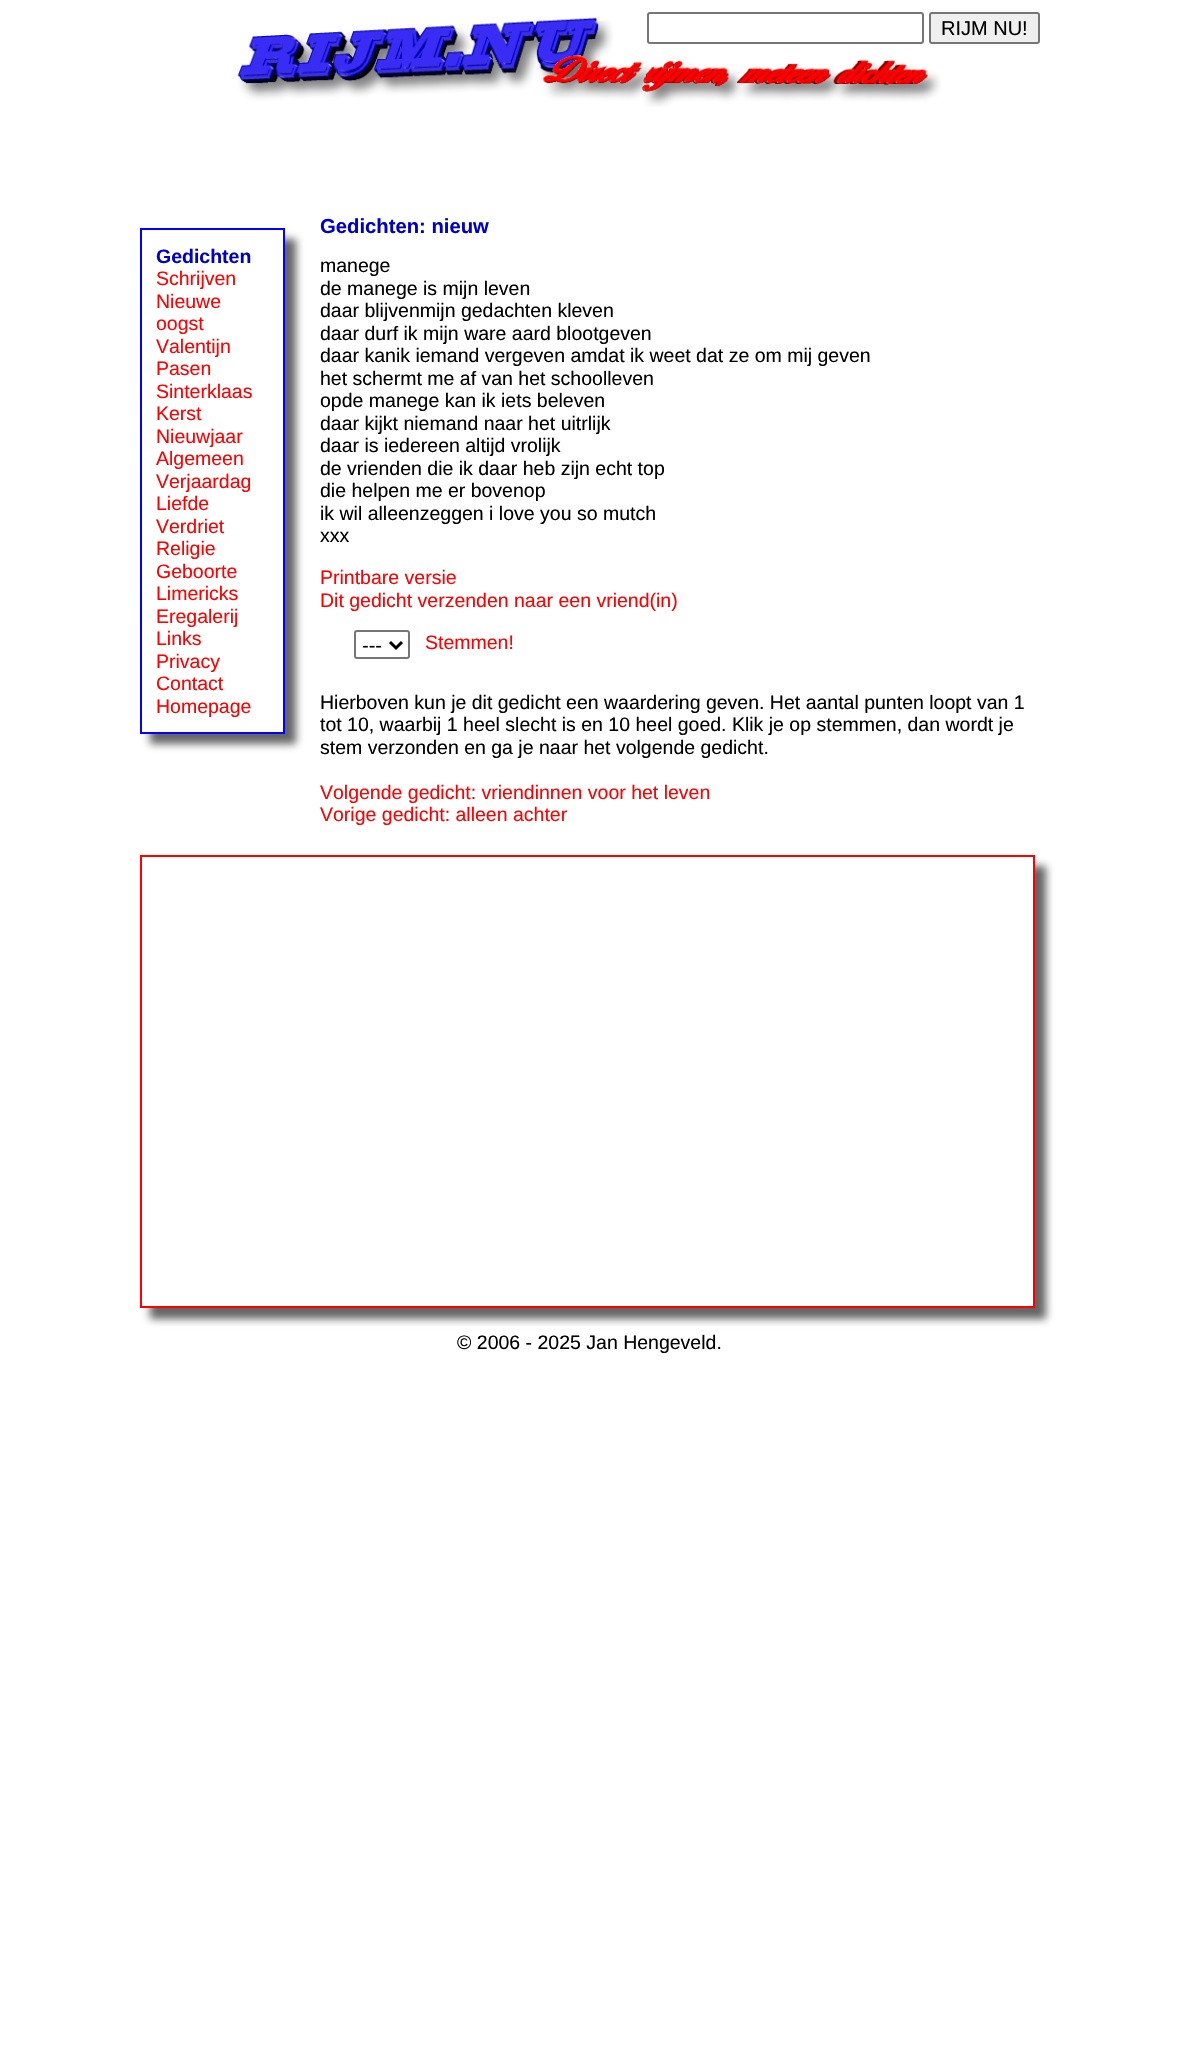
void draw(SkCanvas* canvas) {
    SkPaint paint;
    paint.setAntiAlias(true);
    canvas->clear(0xFFFFFFFF);
    canvas->drawImageRect(SkImages::DeferredFromEncodedData(SkData::MakeFromFileName("img1.png")), SkRect::MakeXYWH(237, 17, 704, 90), SkSamplingOptions());
    paint.setStyle(SkPaint::kStroke_Style);
    paint.setStrokeWidth(2);
    paint.setColor(0xFF767676);
    canvas->drawRoundRect(SkRect::MakeXYWH(648, 13, 275, 30), 2, 2, paint);
    paint.setStyle(SkPaint::kFill_Style);
    paint.setColor(0xFFEFEFEF);
    canvas->drawRoundRect(SkRect::MakeXYWH(930, 13, 109, 30), 2, 2, paint);
    paint.setStyle(SkPaint::kStroke_Style);
    paint.setColor(0xFF767676);
    canvas->drawRoundRect(SkRect::MakeXYWH(930, 13, 109, 30), 2, 2, paint);
    SkFont font1(fontMgr->matchFamilyStyle("Liberation Sans", SkFontStyle::Normal()), 20);
    font1.setSubpixel(true);
    paint.setStyle(SkPaint::kFill_Style);
    paint.setColor(0xFF000000);
    canvas->drawString("RIJM NU!", 941, 35, font1, paint);
    paint.setColor(0xBF323232);
    paint.setMaskFilter(SkMaskFilter::MakeBlur(kNormal_SkBlurStyle, 4));
    canvas->drawRect(SkRect::MakeXYWH(150, 239, 146, 505), paint);
    paint.setMaskFilter(nullptr);
    paint.setColor(0xFFFFFFFF);
    canvas->drawRect(SkRect::MakeXYWH(142, 231, 141, 501), paint);
    paint.setStyle(SkPaint::kStroke_Style);
    paint.setColor(0xFF0000FF);
    canvas->drawRect(SkRect::MakeXYWH(141, 229, 143, 504), paint);
    SkFont font2(fontMgr->matchFamilyStyle("Liberation Sans", SkFontStyle::Bold()), 19.5f);
    font2.setSubpixel(true);
    paint.setStyle(SkPaint::kFill_Style);
    paint.setColor(0xFF0000CC);
    canvas->drawString("Gedichten", 156, 263, font2, paint);
    SkFont font3(fontMgr->matchFamilyStyle("Liberation Sans", SkFontStyle::Normal()), 19.5f);
    font3.setSubpixel(true);
    paint.setColor(0xFFFF0000);
    canvas->drawString("Schrijven", 156, 285, font3, paint);
    canvas->drawString("Nieuwe", 156, 308, font3, paint);
    canvas->drawString("oogst", 156, 330, font3, paint);
    canvas->drawString("Valentijn", 156, 353, font3, paint);
    canvas->drawString("Pasen", 156, 375, font3, paint);
    canvas->drawString("Sinterklaas", 156, 398, font3, paint);
    canvas->drawString("Kerst", 156, 420, font3, paint);
    canvas->drawString("Nieuwjaar", 156, 443, font3, paint);
    canvas->drawString("Algemeen", 156, 465, font3, paint);
    canvas->drawString("Verjaardag", 156, 488, font3, paint);
    canvas->drawString("Liefde", 156, 510, font3, paint);
    canvas->drawString("Verdriet", 156, 533, font3, paint);
    canvas->drawString("Religie", 156, 555, font3, paint);
    canvas->drawString("Geboorte", 156, 578, font3, paint);
    canvas->drawString("Limericks", 156, 600, font3, paint);
    canvas->drawString("Eregalerij", 156, 623, font3, paint);
    canvas->drawString("Links", 156, 645, font3, paint);
    canvas->drawString("Privacy", 156, 668, font3, paint);
    canvas->drawString("Contact", 156, 690, font3, paint);
    canvas->drawString("Homepage", 156, 713, font3, paint);
    SkFont font4(fontMgr->matchFamilyStyle("Liberation Sans", SkFontStyle::Bold()), 20.25f);
    font4.setSubpixel(true);
    paint.setColor(0xFF0000CC);
    canvas->drawString("Gedichten: nieuw", 320, 233, font4, paint);
    paint.setColor(0xFF000000);
    canvas->drawString("manege", 320, 272, font3, paint);
    canvas->drawString("de manege is mijn leven", 320, 295, font3, paint);
    canvas->drawString("daar blijvenmijn gedachten kleven", 320, 317, font3, paint);
    canvas->drawString("daar durf ik mijn ware aard blootgeven", 320, 340, font3, paint);
    canvas->drawString("daar kanik iemand vergeven amdat ik weet dat ze om mij geven", 320, 362, font3, paint);
    canvas->drawString("het schermt me af van het schoolleven", 320, 385, font3, paint);
    canvas->drawString("opde manege kan ik iets beleven", 320, 407, font3, paint);
    canvas->drawString("daar kijkt niemand naar het uitrlijk", 320, 430, font3, paint);
    canvas->drawString("daar is iedereen altijd vrolijk", 320, 452, font3, paint);
    canvas->drawString("de vrienden die ik daar heb zijn echt top", 320, 475, font3, paint);
    canvas->drawString("die helpen me er bovenop", 320, 497, font3, paint);
    canvas->drawString("ik wil alleenzeggen i love you so mutch", 320, 520, font3, paint);
    canvas->drawString("xxx", 320, 542, font3, paint);
    paint.setColor(0xFFFF0000);
    canvas->drawString("Printbare versie", 320, 584, font3, paint);
    canvas->drawString("Dit gedicht verzenden naar een vriend(in)", 320, 607, font3, paint);
    paint.setStyle(SkPaint::kStroke_Style);
    paint.setColor(0xFF767676);
    canvas->drawRoundRect(SkRect::MakeXYWH(355, 631, 54, 27), 2, 2, paint);
    paint.setStrokeWidth(3);
    paint.setColor(0xFF000000);
    canvas->drawPath(SkPathBuilder().moveTo(390, 642).lineTo(396, 648).lineTo(402, 642).detach(), paint);
    paint.setStyle(SkPaint::kFill_Style);
    canvas->drawString("---", 362, 652, font1, paint);
    paint.setColor(0xFFFF0000);
    canvas->drawString("Stemmen!", 425, 649, font3, paint);
    paint.setColor(0xFF000000);
    canvas->drawString("Hierboven kun je dit gedicht een waardering geven. Het aantal punten loopt van 1", 320, 709, font3, paint);
    canvas->drawString("tot 10, waarbij 1 heel slecht is en 10 heel goed. Klik je op stemmen, dan wordt je", 320, 731, font3, paint);
    canvas->drawString("stem verzonden en ga je naar het volgende gedicht.", 320, 754, font3, paint);
    paint.setColor(0xFFFF0000);
    canvas->drawString("Volgende gedicht: vriendinnen voor het leven", 320, 799, font3, paint);
    canvas->drawString("Vorige gedicht: alleen achter", 320, 821, font3, paint);
    canvas->save();
    canvas->clipPath(SkPathBuilder(SkPathFillType::kEvenOdd).moveTo(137, 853).lineTo(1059, 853).lineTo(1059, 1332).lineTo(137, 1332).close().moveTo(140, 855).lineTo(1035, 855).lineTo(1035, 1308).lineTo(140, 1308).close().detach(), true);
    paint.setColor(0xBF323232);
    paint.setMaskFilter(SkMaskFilter::MakeBlur(kNormal_SkBlurStyle, 4));
    canvas->drawRect(SkRect::MakeXYWH(150, 866, 896, 453), paint);
    paint.setMaskFilter(nullptr);
    canvas->restore();
    paint.setStyle(SkPaint::kStroke_Style);
    paint.setStrokeWidth(2);
    paint.setColor(0xFFFF0000);
    canvas->drawRect(SkRect::MakeXYWH(141, 856, 893, 451), paint);
    paint.setStyle(SkPaint::kFill_Style);
    paint.setColor(0xFF000000);
    canvas->drawString("© 2006 - 2025 Jan Hengeveld.", 457, 1349, font3, paint);
}
